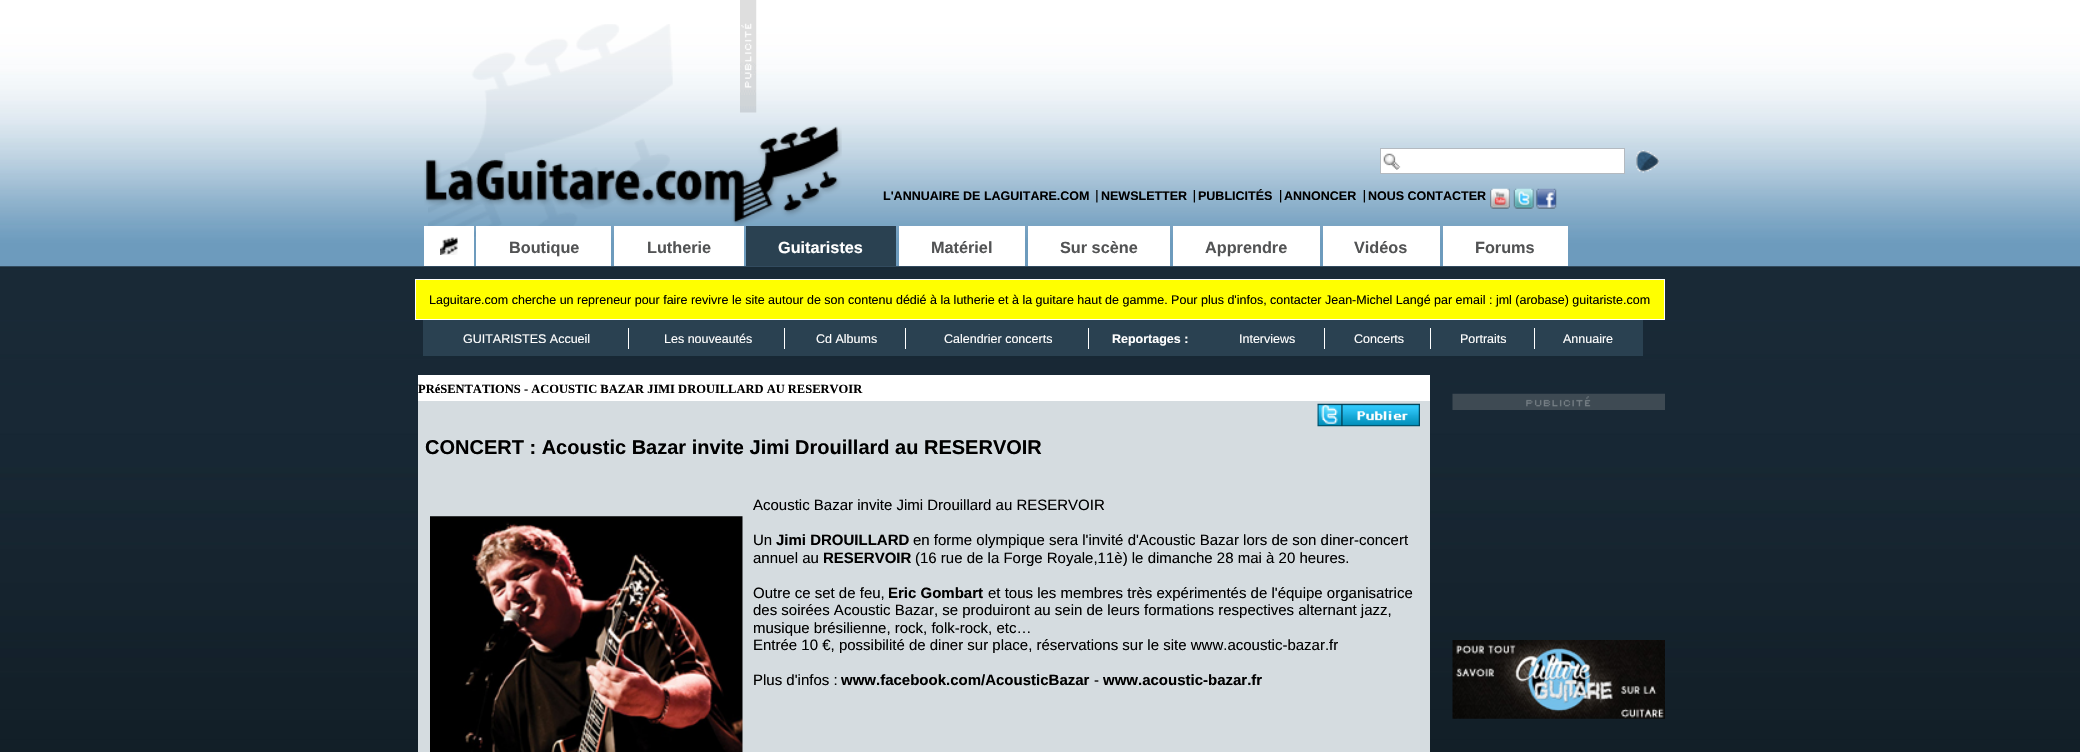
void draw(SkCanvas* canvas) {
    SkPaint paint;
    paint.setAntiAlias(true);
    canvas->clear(0xFFFFFFFF);
    canvas->drawImageRect(SkImages::DeferredFromEncodedData(SkData::MakeFromFileName("img1.png")), SkRect::MakeXYWH(0, 0, 2080, 752), SkSamplingOptions());
    canvas->drawImageRect(SkImages::DeferredFromEncodedData(SkData::MakeFromFileName("img2.png")), SkRect::MakeXYWH(428, 24, 245, 213), SkSamplingOptions());
    canvas->drawImageRect(SkImages::DeferredFromEncodedData(SkData::MakeFromFileName("img3.png")), SkRect::MakeXYWH(740, 0, 17, 113), SkSamplingOptions());
    canvas->drawImageRect(SkImages::DeferredFromEncodedData(SkData::MakeFromFileName("img4.png")), SkRect::MakeXYWH(424, 126, 418, 100), SkSamplingOptions());
    paint.setColor(0xFFFFFFFF);
    canvas->drawRect(SkRect::MakeXYWH(1381, 149, 243, 24), paint);
    canvas->drawImageRect(SkImages::DeferredFromEncodedData(SkData::MakeFromFileName("img5.png")), SkRect::MakeXYWH(1383, 153, 18, 17), SkSamplingOptions());
    paint.setStyle(SkPaint::kStroke_Style);
    paint.setStrokeWidth(1);
    paint.setColor(0xFFB4BAC0);
    canvas->drawRect(SkRect::MakeXYWH(1380.5f, 148.5f, 244, 25), paint);
    canvas->drawImageRect(SkImages::DeferredFromEncodedData(SkData::MakeFromFileName("img6.png")), SkRect::MakeXYWH(1636, 150, 23, 23), SkSamplingOptions());
    SkFont font1(fontMgr->matchFamilyStyle("Liberation Sans", SkFontStyle::Bold()), 12.5f);
    font1.setSubpixel(true);
    paint.setStyle(SkPaint::kFill_Style);
    paint.setColor(0xFF000000);
    canvas->drawString("L'ANNUAIRE DE LAGUITARE.COM", 883, 200, font1, paint);
    canvas->drawImageRect(SkImages::DeferredFromEncodedData(SkData::MakeFromFileName("img7.png")), SkRect::MakeXYWH(1096, 190, 2, 13), SkSamplingOptions());
    canvas->drawString("NEWSLETTER", 1101, 200, font1, paint);
    canvas->drawImageRect(SkImages::DeferredFromEncodedData(SkData::MakeFromFileName("img8.png")), SkRect::MakeXYWH(1193, 190, 2, 13), SkSamplingOptions());
    canvas->drawString("PUBLICITÉS", 1198, 200, font1, paint);
    canvas->drawImageRect(SkImages::DeferredFromEncodedData(SkData::MakeFromFileName("img9.png")), SkRect::MakeXYWH(1280, 190, 2, 13), SkSamplingOptions());
    canvas->drawString("ANNONCER", 1284, 200, font1, paint);
    canvas->drawImageRect(SkImages::DeferredFromEncodedData(SkData::MakeFromFileName("img10.png")), SkRect::MakeXYWH(1363, 190, 2, 13), SkSamplingOptions());
    canvas->drawString("NOUS CONTACTER", 1368, 200, font1, paint);
    canvas->drawImageRect(SkImages::DeferredFromEncodedData(SkData::MakeFromFileName("img11.png")), SkRect::MakeXYWH(1490, 188, 20, 21), SkSamplingOptions());
    canvas->drawImageRect(SkImages::DeferredFromEncodedData(SkData::MakeFromFileName("img12.png")), SkRect::MakeXYWH(1513, 188, 21, 21), SkSamplingOptions());
    canvas->drawImageRect(SkImages::DeferredFromEncodedData(SkData::MakeFromFileName("img13.png")), SkRect::MakeXYWH(1536, 188, 21, 21), SkSamplingOptions());
    paint.setColor(0xFFFFFFFF);
    canvas->drawRect(SkRect::MakeXYWH(424, 226, 50, 40), paint);
    canvas->drawImageRect(SkImages::DeferredFromEncodedData(SkData::MakeFromFileName("img14.png")), SkRect::MakeXYWH(440, 237, 18, 18), SkSamplingOptions());
    canvas->drawRect(SkRect::MakeXYWH(476, 226, 135, 40), paint);
    SkFont font2(fontMgr->matchFamilyStyle("Liberation Sans", SkFontStyle::Bold()), 16.25f);
    font2.setSubpixel(true);
    paint.setColor(0xFF525354);
    canvas->drawString("Boutique", 509, 253, font2, paint);
    paint.setColor(0xFFFFFFFF);
    canvas->drawRect(SkRect::MakeXYWH(614, 226, 130, 40), paint);
    paint.setColor(0xFF525354);
    canvas->drawString("Lutherie", 647, 253, font2, paint);
    paint.setColor(0xFF2A4151);
    canvas->drawRect(SkRect::MakeXYWH(746, 226, 150, 40), paint);
    paint.setColor(0xFFFFFFFF);
    canvas->drawString("Guitaristes", 778, 253, font2, paint);
    canvas->drawRect(SkRect::MakeXYWH(899, 226, 126, 40), paint);
    paint.setColor(0xFF525354);
    canvas->drawString("Matériel", 931, 253, font2, paint);
    paint.setColor(0xFFFFFFFF);
    canvas->drawRect(SkRect::MakeXYWH(1028, 226, 142, 40), paint);
    paint.setColor(0xFF525354);
    canvas->drawString("Sur scène", 1060, 253, font2, paint);
    paint.setColor(0xFFFFFFFF);
    canvas->drawRect(SkRect::MakeXYWH(1173, 226, 147, 40), paint);
    paint.setColor(0xFF525354);
    canvas->drawString("Apprendre", 1205, 253, font2, paint);
    paint.setColor(0xFFFFFFFF);
    canvas->drawRect(SkRect::MakeXYWH(1323, 226, 117, 40), paint);
    paint.setColor(0xFF525354);
    canvas->drawString("Vidéos", 1354, 253, font2, paint);
    paint.setColor(0xFFFFFFFF);
    canvas->drawRect(SkRect::MakeXYWH(1443, 226, 125, 40), paint);
    paint.setColor(0xFF525354);
    canvas->drawString("Forums", 1475, 253, font2, paint);
    paint.setColor(0xFFFFFF00);
    canvas->drawRect(SkRect::MakeXYWH(415.5f, 279.5f, 1249, 40), paint);
    paint.setStyle(SkPaint::kStroke_Style);
    paint.setColor(0xFFFFFFFF);
    canvas->drawRect(SkRect::MakeXYWH(415.5f, 279.5f, 1249, 40), paint);
    SkFont font3(fontMgr->matchFamilyStyle("Liberation Sans", SkFontStyle::Normal()), 12.5f);
    font3.setSubpixel(true);
    paint.setStyle(SkPaint::kFill_Style);
    paint.setColor(0xFF000000);
    canvas->drawString("Laguitare.com cherche un repreneur pour faire revivre le site autour de son contenu dédié à la lutherie et à la guitare haut de gamme. Pour plus d'infos, contacter Jean-Michel Langé par email : jml (arobase) guitariste.com", 429, 304, font3, paint);
    paint.setColor(0xFF2A4151);
    canvas->drawRect(SkRect::MakeXYWH(423, 320, 1220, 36), paint);
    paint.setColor(0xFFFFFFFF);
    canvas->drawRect(SkRect::MakeXYWH(628, 328, 1, 21), paint);
    canvas->drawString("GUITARISTES Accueil", 463, 343, font3, paint);
    canvas->drawRect(SkRect::MakeXYWH(784, 328, 1, 21), paint);
    canvas->drawString("Les nouveautés", 664, 343, font3, paint);
    canvas->drawRect(SkRect::MakeXYWH(905, 328, 1, 21), paint);
    canvas->drawString("Cd Albums", 816, 343, font3, paint);
    canvas->drawRect(SkRect::MakeXYWH(1088, 328, 1, 21), paint);
    canvas->drawString("Calendrier concerts", 944, 343, font3, paint);
    canvas->drawString("Reportages :", 1112, 343, font1, paint);
    canvas->drawRect(SkRect::MakeXYWH(1324, 328, 1, 21), paint);
    canvas->drawString("Interviews", 1239, 343, font3, paint);
    canvas->drawRect(SkRect::MakeXYWH(1430, 328, 1, 21), paint);
    canvas->drawString("Concerts", 1354, 343, font3, paint);
    canvas->drawRect(SkRect::MakeXYWH(1534, 328, 1, 21), paint);
    canvas->drawString("Portraits", 1460, 343, font3, paint);
    canvas->drawString("Annuaire", 1563, 343, font3, paint);
    canvas->drawRect(SkRect::MakeXYWH(418, 375, 1012, 26), paint);
    SkFont font4(fontMgr->matchFamilyStyle("Liberation Serif", SkFontStyle::Bold()), 12.5f);
    font4.setSubpixel(true);
    paint.setColor(0xFF000000);
    canvas->drawString("PRéSENTATIONS - ACOUSTIC BAZAR JIMI DROUILLARD AU RESERVOIR", 418, 393, font4, paint);
    paint.setColor(0xFFD5DCE0);
    canvas->drawRect(SkRect::MakeXYWH(418, 401, 1012, 351), paint);
    canvas->drawImageRect(SkImages::DeferredFromEncodedData(SkData::MakeFromFileName("img15.png")), SkRect::MakeXYWH(1317, 403, 103, 24), SkSamplingOptions());
    SkFont font5(fontMgr->matchFamilyStyle("Liberation Sans", SkFontStyle::Bold()), 20);
    font5.setSubpixel(true);
    paint.setColor(0xFF000000);
    canvas->drawString("CONCERT : Acoustic Bazar invite Jimi Drouillard au RESERVOIR", 425, 454, font5, paint);
    canvas->drawImageRect(SkImages::DeferredFromEncodedData(SkData::MakeFromFileName("img16.png")), SkRect::MakeXYWH(430, 516, 313, 236), SkSamplingOptions());
    SkFont font6(fontMgr->matchFamilyStyle("Liberation Sans", SkFontStyle::Normal()), 15);
    font6.setSubpixel(true);
    canvas->drawString("Acoustic Bazar invite Jimi Drouillard au RESERVOIR", 753, 510, font6, paint);
    canvas->drawString("Un", 753, 545, font6, paint);
    SkFont font7(fontMgr->matchFamilyStyle("Liberation Sans", SkFontStyle::Bold()), 15);
    font7.setSubpixel(true);
    canvas->drawString("Jimi DROUILLARD", 776, 545, font7, paint);
    canvas->drawString("en forme olympique sera l'invité d'Acoustic Bazar lors de son diner-concert", 913, 545, font6, paint);
    canvas->drawString("annuel au", 753, 563, font6, paint);
    canvas->drawString("RESERVOIR", 823, 563, font7, paint);
    canvas->drawString("(16 rue de la Forge Royale,11è) le dimanche 28 mai à 20 heures.", 915, 563, font6, paint);
    canvas->drawString("Outre ce set de feu,", 753, 598, font6, paint);
    canvas->drawString("Eric Gombart", 888, 598, font7, paint);
    canvas->drawString("et tous les membres très expérimentés de l'équipe organisatrice", 988, 598, font6, paint);
    canvas->drawString("des soirées Acoustic Bazar, se produiront au sein de leurs formations respectives alternant jazz,", 753, 615, font6, paint);
    canvas->drawString("musique brésilienne, rock, folk-rock, etc…", 753, 633, font6, paint);
    canvas->drawString("Entrée 10 €, possibilité de diner sur place, réservations sur le site www.acoustic-bazar.fr", 753, 650, font6, paint);
    canvas->drawString("Plus d'infos :", 753, 685, font6, paint);
    canvas->drawString("www.facebook.com/AcousticBazar", 841, 685, font7, paint);
    canvas->drawString("-", 1094, 685, font6, paint);
    canvas->drawString("www.acoustic-bazar.fr", 1103, 685, font7, paint);
    canvas->drawImageRect(SkImages::DeferredFromEncodedData(SkData::MakeFromFileName("img17.png")), SkRect::MakeXYWH(1452, 393, 213, 17), SkSamplingOptions());
    canvas->drawImageRect(SkImages::DeferredFromEncodedData(SkData::MakeFromFileName("img18.png")), SkRect::MakeXYWH(1452, 640, 213, 79), SkSamplingOptions());
}
